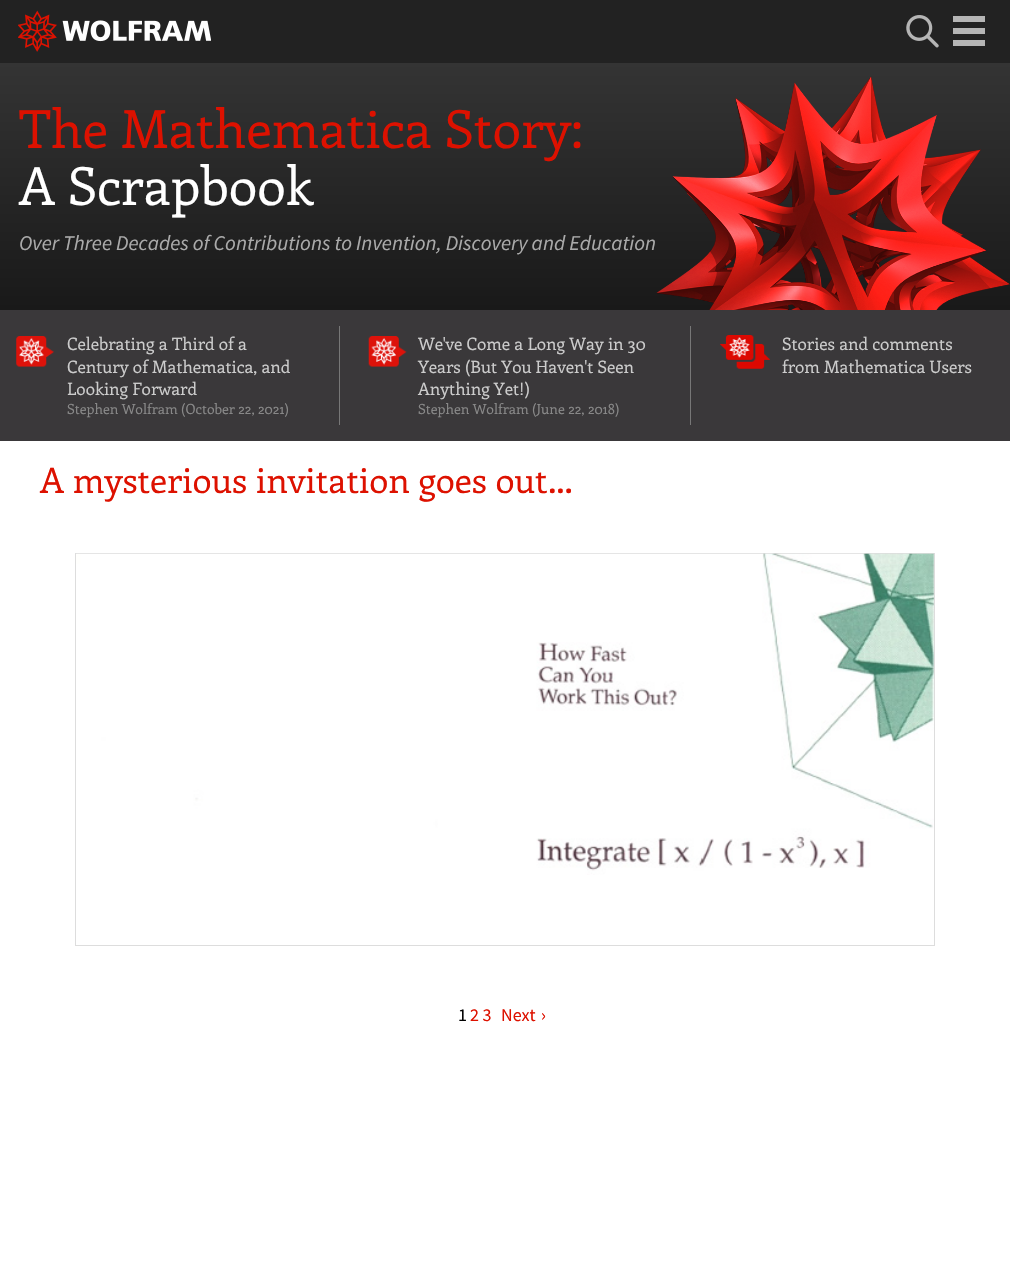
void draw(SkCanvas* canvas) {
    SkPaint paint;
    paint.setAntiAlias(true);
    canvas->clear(0xFFFFFFFF);
    paint.setColor(0xFF222222);
    canvas->drawRect(SkRect::MakeXYWH(0, 0, 1010, 63), paint);
    canvas->drawImageRect(SkImages::DeferredFromEncodedData(SkData::MakeFromFileName("img1.png")), SkRect::MakeXYWH(18, 10, 193, 42), SkSamplingOptions());
    canvas->drawImageRect(SkImages::DeferredFromEncodedData(SkData::MakeFromFileName("img2.png")), SkRect::MakeXYWH(906, 15, 33, 33), SkSamplingOptions());
    paint.setColor(0xFFB5B5B5);
    canvas->drawRect(SkRect::MakeXYWH(953, 16, 32, 6), paint);
    canvas->drawRect(SkRect::MakeXYWH(953, 28, 32, 6), paint);
    canvas->drawRect(SkRect::MakeXYWH(953, 40, 32, 6), paint);
    {
        const SkColor colors[] = {0xFF343434, 0xFF191919};
        const float stops[] = {0, 1};
        const SkPoint ends[] = {{505, 62}, {505, 310}};
        paint.setShader(SkGradientShader::MakeLinear(ends, colors, stops, 2, SkTileMode::kClamp));
        paint.setAlpha(255);
    }
    canvas->drawRect(SkRect::MakeXYWH(0, 63, 1010, 247), paint);
    canvas->drawImageRect(SkImages::DeferredFromEncodedData(SkData::MakeFromFileName("img3.png")), SkRect::MakeXYWH(656, 76, 354, 234), SkSamplingOptions());
    SkFont font1(fontMgr->matchFamilyStyle("Enriqueta", SkFontStyle::Normal()), 52.5f);
    font1.setSubpixel(true);
    paint.setShader(nullptr);
    paint.setColor(0xFFDD1100);
    canvas->drawString("The Mathematica Story:", 19, 148, font1, paint);
    paint.setColor(0xFFFFFFFF);
    canvas->drawString("A Scrapbook", 19, 205, font1, paint);
    SkFont font2(fontMgr->matchFamilyStyle("Source Sans Pro", SkFontStyle::Italic()), 21);
    font2.setSubpixel(true);
    paint.setColor(0xFFAAAAAA);
    canvas->drawString("Over Three Decades of Contributions to Invention, Discovery and Education", 19, 250, font2, paint);
    paint.setColor(0xFF3A383A);
    canvas->drawRect(SkRect::MakeXYWH(0, 310, 1010, 131), paint);
    canvas->drawImageRect(SkImages::DeferredFromEncodedData(SkData::MakeFromFileName("img4.png")), SkRect::MakeXYWH(16, 336, 38, 31), SkSamplingOptions());
    SkFont font3(fontMgr->matchFamilyStyle("Enriqueta", SkFontStyle::Normal()), 17.1f);
    font3.setSubpixel(true);
    paint.setColor(0xFFCCCCCC);
    canvas->drawString("Celebrating a Third of a", 67, 350, font3, paint);
    canvas->drawString("Century of Mathematica, and", 67, 373, font3, paint);
    canvas->drawString("Looking Forward", 67, 395, font3, paint);
    SkFont font4(fontMgr->matchFamilyStyle("Enriqueta", SkFontStyle::Normal()), 14);
    font4.setSubpixel(true);
    paint.setColor(0xFF888888);
    canvas->drawString("Stephen Wolfram (October 22, 2021)", 67, 414, font4, paint);
    paint.setColor(0xFF777777);
    canvas->drawRect(SkRect::MakeXYWH(339, 326, 1, 99), paint);
    canvas->drawImageRect(SkImages::DeferredFromEncodedData(SkData::MakeFromFileName("img5.png")), SkRect::MakeXYWH(368, 336, 39, 31), SkSamplingOptions());
    paint.setColor(0xFFCCCCCC);
    canvas->drawString("We've Come a Long Way in 30", 418, 350, font3, paint);
    canvas->drawString("Years (But You Haven't Seen", 418, 373, font3, paint);
    canvas->drawString("Anything Yet!)", 418, 395, font3, paint);
    paint.setColor(0xFF888888);
    canvas->drawString("Stephen Wolfram (June 22, 2018)", 418, 414, font4, paint);
    paint.setColor(0xFF777777);
    canvas->drawRect(SkRect::MakeXYWH(690, 326, 1, 99), paint);
    canvas->drawImageRect(SkImages::DeferredFromEncodedData(SkData::MakeFromFileName("img6.png")), SkRect::MakeXYWH(720, 335, 50, 34), SkSamplingOptions());
    paint.setColor(0xFFCCCCCC);
    canvas->drawString("Stories and comments", 782, 350, font3, paint);
    canvas->drawString("from Mathematica Users", 782, 373, font3, paint);
    SkFont font5(fontMgr->matchFamilyStyle("Enriqueta", SkFontStyle::Normal()), 35);
    font5.setSubpixel(true);
    paint.setColor(0xFFDD1100);
    canvas->drawString("A mysterious invitation goes out…", 40, 493, font5, paint);
    paint.setStyle(SkPaint::kStroke_Style);
    paint.setStrokeWidth(1);
    paint.setColor(0xFFDDDDDD);
    canvas->drawRect(SkRect::MakeXYWH(75.5f, 553.5f, 859, 392), paint);
    canvas->drawImageRect(SkImages::DeferredFromEncodedData(SkData::MakeFromFileName("img7.png")), SkRect::MakeXYWH(76, 553, 858, 322), SkSamplingOptions());
    SkFont font6(fontMgr->matchFamilyStyle("Source Sans Pro", SkFontStyle::Normal()), 18);
    font6.setSubpixel(true);
    paint.setStyle(SkPaint::kFill_Style);
    paint.setColor(0xFF000000);
    canvas->drawString("1", 458, 1021, font6, paint);
    paint.setColor(0xFFDD1100);
    canvas->drawString("2 3", 470, 1021, font6, paint);
    canvas->drawString("Next", 501, 1021, font6, paint);
    canvas->drawString("›", 541, 1021, font6, paint);
}
